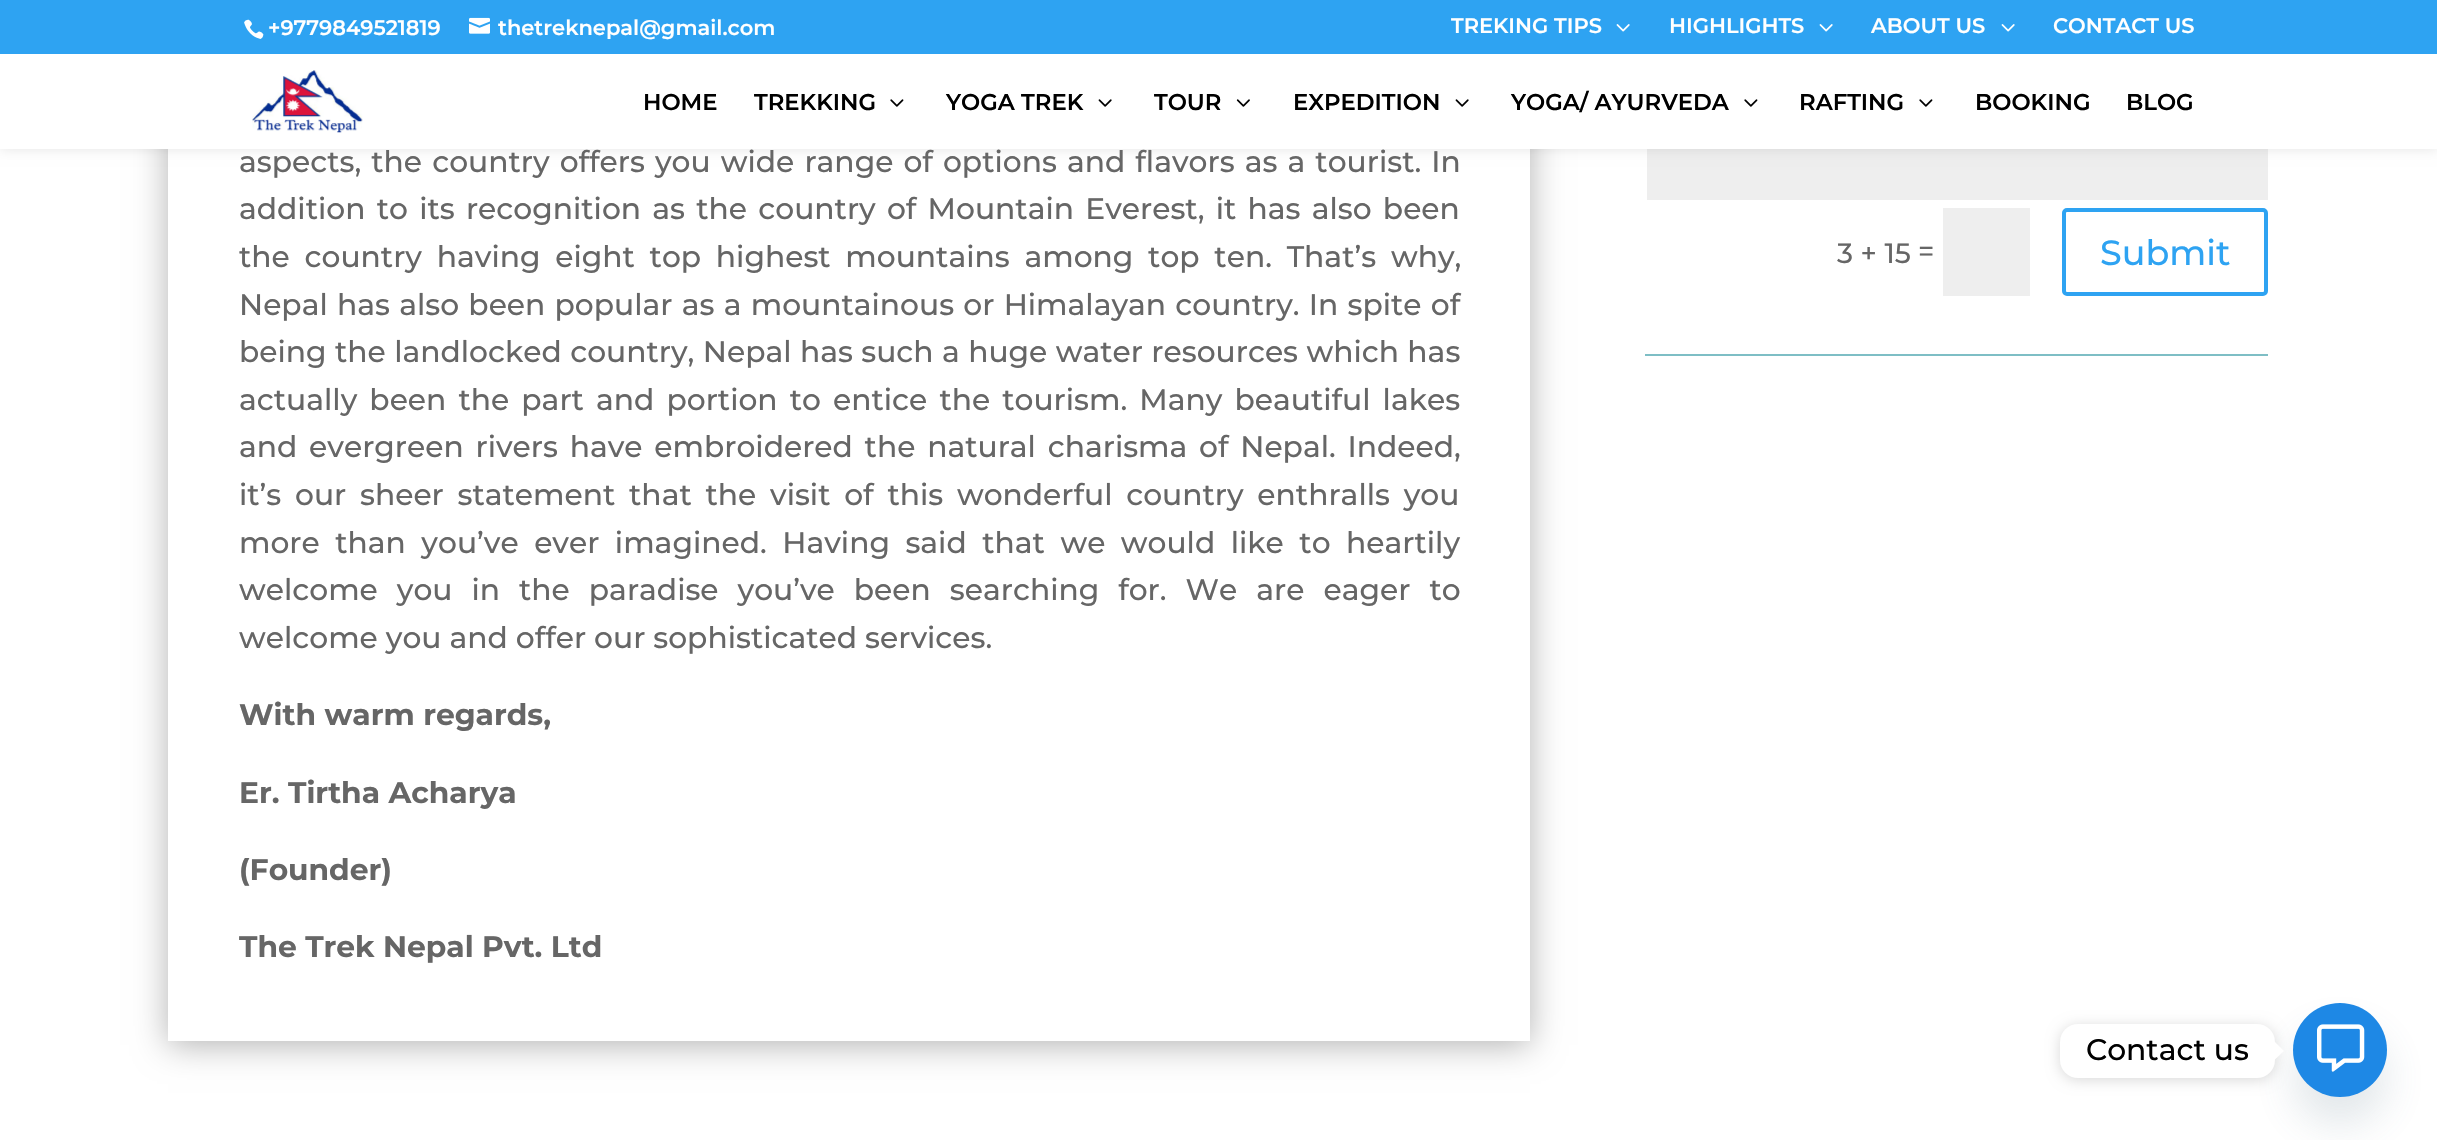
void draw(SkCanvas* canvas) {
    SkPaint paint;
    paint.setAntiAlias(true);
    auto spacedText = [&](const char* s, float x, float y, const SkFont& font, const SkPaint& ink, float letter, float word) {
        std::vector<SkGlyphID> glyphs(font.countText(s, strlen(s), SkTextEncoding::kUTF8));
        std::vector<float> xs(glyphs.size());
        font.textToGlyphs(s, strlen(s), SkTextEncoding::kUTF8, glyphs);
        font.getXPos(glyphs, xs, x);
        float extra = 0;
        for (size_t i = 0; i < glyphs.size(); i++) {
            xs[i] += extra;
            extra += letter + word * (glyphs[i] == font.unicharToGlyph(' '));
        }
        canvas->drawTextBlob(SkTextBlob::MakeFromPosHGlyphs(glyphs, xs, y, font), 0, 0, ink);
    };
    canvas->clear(0xFFFFFFFF);
    paint.setColor(0xFFEEEEEE);
    canvas->drawRect(SkRect::MakeXYWH(1647, 149, 621, 51), paint);
    paint.setColor(0x1A000000);
    paint.setMaskFilter(SkMaskFilter::MakeBlur(kNormal_SkBlurStyle, 6));
    canvas->drawRect(SkRect::MakeXYWH(0, 54, 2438, 95), paint);
    paint.setMaskFilter(nullptr);
    canvas->save();
    canvas->clipPath(SkPathBuilder(SkPathFillType::kEvenOdd).moveTo(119, 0).lineTo(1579, 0).lineTo(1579, 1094).lineTo(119, 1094).close().moveTo(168, -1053).lineTo(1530, -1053).lineTo(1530, 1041).lineTo(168, 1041).close().detach(), true);
    paint.setColor(0x4D000000);
    paint.setMaskFilter(SkMaskFilter::MakeBlur(kNormal_SkBlurStyle, 16));
    canvas->drawRect(SkRect::MakeXYWH(168, -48, 1362, 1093), paint);
    paint.setMaskFilter(nullptr);
    canvas->restore();
    paint.setColor(0xFF2EA3F2);
    canvas->drawRect(SkRect::MakeXYWH(0, 0, 2437, 54), paint);
    canvas->drawImageRect(SkImages::DeferredFromEncodedData(SkData::MakeFromFileName("img1.png")), SkRect::MakeXYWH(244, 19, 20, 20), SkSamplingOptions());
    SkFont font1(fontMgr->matchFamilyStyle("Montserrat", SkFontStyle(600, SkFontStyle::kNormal_Width, SkFontStyle::kUpright_Slant)), 21);
    font1.setSubpixel(true);
    paint.setColor(0xFFFFFFFF);
    canvas->drawString("+9779849521819", 268, 35, font1, paint);
    canvas->drawImageRect(SkImages::DeferredFromEncodedData(SkData::MakeFromFileName("img2.png")), SkRect::MakeXYWH(469, 17, 21, 17), SkSamplingOptions());
    canvas->drawString("thetreknepal@gmail.com", 498, 35, font1, paint);
    canvas->drawString("TREKING TIPS", 1451, 33, font1, paint);
    canvas->drawImageRect(SkImages::DeferredFromEncodedData(SkData::MakeFromFileName("img3.png")), SkRect::MakeXYWH(1616, 24, 14, 8), SkSamplingOptions());
    canvas->drawString("HIGHLIGHTS", 1669, 33, font1, paint);
    canvas->drawImageRect(SkImages::DeferredFromEncodedData(SkData::MakeFromFileName("img3.png")), SkRect::MakeXYWH(1819, 24, 14, 8), SkSamplingOptions());
    canvas->drawString("ABOUT US", 1871, 33, font1, paint);
    canvas->drawImageRect(SkImages::DeferredFromEncodedData(SkData::MakeFromFileName("img3.png")), SkRect::MakeXYWH(2001, 24, 14, 8), SkSamplingOptions());
    canvas->drawString("CONTACT US", 2053, 33, font1, paint);
    canvas->drawRect(SkRect::MakeXYWH(0, 54, 2437, 95), paint);
    canvas->drawImageRect(SkImages::DeferredFromEncodedData(SkData::MakeFromFileName("img4.png")), SkRect::MakeXYWH(252, 70, 111, 63), SkSamplingOptions());
    SkFont font2(fontMgr->matchFamilyStyle("Montserrat", SkFontStyle(600, SkFontStyle::kNormal_Width, SkFontStyle::kUpright_Slant)), 22.75f);
    font2.setSubpixel(true);
    paint.setColor(0xFF000000);
    canvas->drawString("HOME", 643, 110, font2, paint);
    canvas->drawString("TREKKING", 754, 110, font2, paint);
    canvas->drawImageRect(SkImages::DeferredFromEncodedData(SkData::MakeFromFileName("img5.png")), SkRect::MakeXYWH(890, 99, 14, 8), SkSamplingOptions());
    canvas->drawString("YOGA TREK", 946, 110, font2, paint);
    canvas->drawImageRect(SkImages::DeferredFromEncodedData(SkData::MakeFromFileName("img6.png")), SkRect::MakeXYWH(1098, 99, 14, 8), SkSamplingOptions());
    canvas->drawString("TOUR", 1154, 110, font2, paint);
    canvas->drawImageRect(SkImages::DeferredFromEncodedData(SkData::MakeFromFileName("img7.png")), SkRect::MakeXYWH(1236, 99, 14, 8), SkSamplingOptions());
    canvas->drawString("EXPEDITION", 1293, 110, font2, paint);
    canvas->drawImageRect(SkImages::DeferredFromEncodedData(SkData::MakeFromFileName("img6.png")), SkRect::MakeXYWH(1455, 99, 14, 8), SkSamplingOptions());
    canvas->drawString("YOGA/ AYURVEDA", 1511, 110, font2, paint);
    canvas->drawImageRect(SkImages::DeferredFromEncodedData(SkData::MakeFromFileName("img5.png")), SkRect::MakeXYWH(1744, 99, 14, 8), SkSamplingOptions());
    canvas->drawString("RAFTING", 1799, 110, font2, paint);
    canvas->drawImageRect(SkImages::DeferredFromEncodedData(SkData::MakeFromFileName("img5.png")), SkRect::MakeXYWH(1919, 99, 14, 8), SkSamplingOptions());
    canvas->drawString("BOOKING", 1975, 110, font2, paint);
    canvas->drawString("BLOG", 2126, 110, font2, paint);
    SkFont font3(fontMgr->matchFamilyStyle("Montserrat", SkFontStyle(500, SkFontStyle::kNormal_Width, SkFontStyle::kUpright_Slant)), 29.75f);
    font3.setSubpixel(true);
    paint.setColor(0xFF666666);
    spacedText("aspects, the country offers you wide range of options and flavors as a tourist. In", 239, 172, font3, paint, 0, 2.1f);
    spacedText("addition to its recognition as the country of Mountain Everest, it has also been", 239, 219, font3, paint, 0, 3.25f);
    spacedText("the country having eight top highest mountains among top ten. That’s why,", 239, 267, font3, paint, 0, 6.75f);
    spacedText("Nepal has also been popular as a mountainous or Himalayan country. In spite of", 239, 315, font3, paint, 0, 1.25f);
    spacedText("being the landlocked country, Nepal has such a huge water resources which has", 239, 362, font3, paint, 0, 0.4f);
    spacedText("actually been the part and portion to entice the tourism. Many beautiful lakes", 239, 410, font3, paint, 0, 4.1f);
    spacedText("and evergreen rivers have embroidered the natural charisma of Nepal. Indeed,", 239, 457, font3, paint, 0, 3.75f);
    spacedText("it’s our sheer statement that the visit of this wonderful country enthralls you", 239, 505, font3, paint, 0, 5.75f);
    spacedText("more than you’ve ever imagined. Having said that we would like to heartily", 239, 553, font3, paint, 0, 7.5f);
    spacedText("welcome you in the paradise you’ve been searching for. We are eager to", 239, 600, font3, paint, 0, 11);
    canvas->drawString("welcome you and offer our sophisticated services.", 239, 648, font3, paint);
    SkFont font4(fontMgr->matchFamilyStyle("Montserrat", SkFontStyle::Bold()), 29.75f);
    font4.setSubpixel(true);
    canvas->drawString("With warm regards,", 239, 725, font4, paint);
    canvas->drawString("Er. Tirtha Acharya", 239, 803, font4, paint);
    canvas->drawString("(Founder)", 239, 880, font4, paint);
    canvas->drawString("The Trek Nepal Pvt. Ltd", 239, 957, font4, paint);
    SkFont font5(fontMgr->matchFamilyStyle("Montserrat", SkFontStyle(500, SkFontStyle::kNormal_Width, SkFontStyle::kUpright_Slant)), 28);
    font5.setSubpixel(true);
    canvas->drawString("3 + 15", 1837, 263, font5, paint);
    canvas->drawString("=", 1918, 261, font5, paint);
    paint.setColor(0xFFEEEEEE);
    canvas->drawRect(SkRect::MakeXYWH(1943, 208, 87, 88), paint);
    paint.setStyle(SkPaint::kStroke_Style);
    paint.setStrokeWidth(4);
    paint.setColor(0xFF2EA3F2);
    canvas->drawRoundRect(SkRect::MakeXYWH(2064, 210, 202, 84), 3, 3, paint);
    SkFont font6(fontMgr->matchFamilyStyle("Montserrat", SkFontStyle(500, SkFontStyle::kNormal_Width, SkFontStyle::kUpright_Slant)), 35);
    font6.setSubpixel(true);
    paint.setStyle(SkPaint::kFill_Style);
    canvas->drawString("Submit", 2100, 265, font6, paint);
    paint.setColor(0xFF7EBEC5);
    canvas->drawRect(SkRect::MakeXYWH(1645, 354, 623, 2), paint);
    paint.setColor(0x2949687E);
    paint.setMaskFilter(SkMaskFilter::MakeBlur(kNormal_SkBlurStyle, 21));
    canvas->drawRoundRect(SkRect::MakeXYWH(2293, 1031, 94, 94), 47, 47, paint);
    paint.setMaskFilter(nullptr);
    paint.setColor(0xFF1E88E5);
    canvas->drawCircle(2340, 1050, 47, paint);
    paint.setColor(0x26000000);
    paint.setMaskFilter(SkMaskFilter::MakeBlur(kNormal_SkBlurStyle, 7));
    canvas->drawRoundRect(SkRect::MakeXYWH(2060, 1026, 215, 54), 18, 18, paint);
    paint.setMaskFilter(nullptr);
    paint.setColor(0xFFFFFFFF);
    canvas->drawRoundRect(SkRect::MakeXYWH(2060, 1024, 215, 54), 18, 18, paint);
    paint.setColor(0xFF000000);
    canvas->drawString("Contact us", 2086, 1060, font3, paint);
    paint.setColor(0xFFFFFFFF);
    canvas->drawPath(SkPathBuilder().moveTo(2275, 1059.5f).lineTo(2275, 1042).lineTo(2284, 1051).close().detach(), paint);
    canvas->drawImageRect(SkImages::DeferredFromEncodedData(SkData::MakeFromFileName("img8.png")), SkRect::MakeXYWH(2317, 1024, 48, 48), SkSamplingOptions());
}
